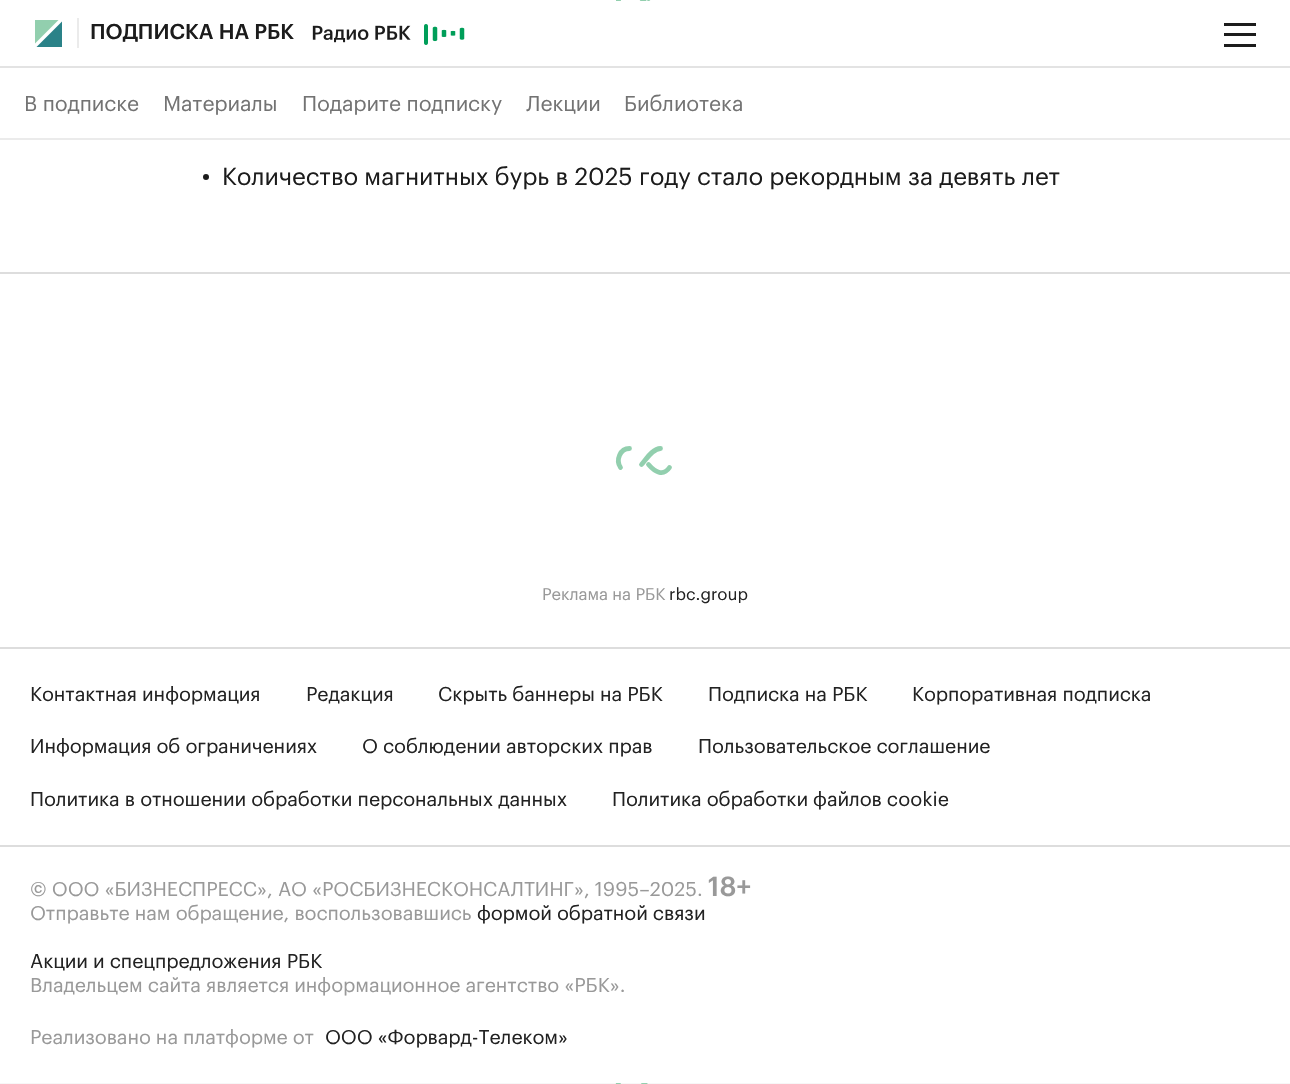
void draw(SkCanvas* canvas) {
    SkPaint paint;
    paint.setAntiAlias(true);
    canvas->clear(0xFFF7F7F7);
    paint.setColor(0xFFFFFFFF);
    canvas->drawRect(SkRect::MakeXYWH(0, 0, 1290, 66), paint);
    canvas->save();
    canvas->clipRect(SkRect::MakeXYWH(608, 0, 75, 1));
    paint.setStyle(SkPaint::kStroke_Style);
    paint.setStrokeWidth(4.8f);
    paint.setStrokeCap(SkPaint::kRound_Cap);
    paint.setColor(0xFF92CFAE);
    canvas->drawPath(SkPathBuilder().moveTo(629.5f, -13.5f).cubicTo(620, -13.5f, 615.5f, -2, 620.5f, 5.5f).moveTo(641.5f, 2.5f).cubicTo(646, -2.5f, 652.5f, -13.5f, 660.5f, -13.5f).moveTo(669.5f, 5.5f).cubicTo(663, 15, 654.5f, 9.5f, 648.5f, 2.5f).detach(), paint);
    canvas->restore();
    paint.setStyle(SkPaint::kFill_Style);
    paint.setColor(0xFFE3E3E3);
    canvas->drawRect(SkRect::MakeXYWH(0, 66, 1290, 2), paint);
    canvas->save();
    canvas->clipRect(SkRect::MakeXYWH(35, 20, 27, 27));
    paint.setColor(0xFF92CFAE);
    canvas->drawPath(SkPathBuilder(SkPathFillType::kEvenOdd).moveTo(33, 18).lineTo(33, 45.5f).lineTo(60.5f, 18).close().detach(), paint);
    paint.setColor(0xFF2A8288);
    canvas->drawPath(SkPathBuilder(SkPathFillType::kEvenOdd).moveTo(35.5f, 48).lineTo(63, 48).lineTo(63, 20.5f).close().detach(), paint);
    canvas->restore();
    paint.setColor(0xFFEBEBEB);
    canvas->drawRect(SkRect::MakeXYWH(77, 18, 2, 30), paint);
    SkFont font1(fontMgr->matchFamilyStyle("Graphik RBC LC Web", SkFontStyle(500, SkFontStyle::kNormal_Width, SkFontStyle::kUpright_Slant)), 21);
    font1.setSubpixel(true);
    paint.setColor(0xFF1C1C1C);
    canvas->drawString("ПОДПИСКА НА РБК", 90, 39, font1, paint);
    canvas->drawImageRect(SkImages::DeferredFromEncodedData(SkData::MakeFromFileName("img1.png")), SkRect::MakeXYWH(312, 24, 153, 21), SkSamplingOptions());
    canvas->drawRect(SkRect::MakeXYWH(1224, 23, 32, 3), paint);
    canvas->drawRect(SkRect::MakeXYWH(1224, 33, 32, 3), paint);
    canvas->drawRect(SkRect::MakeXYWH(1224, 44, 32, 3), paint);
    paint.setColor(0xFFFFFFFF);
    canvas->drawRect(SkRect::MakeXYWH(0, 140, 1290, 943), paint);
    canvas->drawRect(SkRect::MakeXYWH(0, 68, 1290, 70), paint);
    paint.setColor(0xFFEBEBEB);
    canvas->drawRect(SkRect::MakeXYWH(0, 138, 1290, 2), paint);
    SkFont font2(fontMgr->matchFamilyStyle("Graphik RBC LC Web", SkFontStyle::Normal()), 21);
    font2.setSubpixel(true);
    paint.setColor(0xFF737373);
    canvas->drawString("В подписке", 24, 111, font2, paint);
    canvas->drawString("Материалы", 163, 111, font2, paint);
    canvas->drawString("Подарите подписку", 302, 111, font2, paint);
    canvas->drawString("Лекции", 526, 111, font2, paint);
    canvas->drawString("Библиотека", 624, 111, font2, paint);
    paint.setColor(0xFF1C1C1C);
    canvas->drawCircle(206, 177, 3, paint);
    SkFont font3(fontMgr->matchFamilyStyle("Graphik RBC LC Web", SkFontStyle::Normal()), 24);
    font3.setSubpixel(true);
    canvas->drawString("Количество магнитных бурь в 2025 году стало рекордным за девять лет", 222, 185, font3, paint);
    paint.setColor(0xFFDDDDDD);
    canvas->drawRect(SkRect::MakeXYWH(0, 272, 1290, 2), paint);
    paint.setStyle(SkPaint::kStroke_Style);
    paint.setColor(0xFF92CFAE);
    canvas->drawPath(SkPathBuilder().moveTo(629.5f, 448.5f).cubicTo(620, 448.5f, 615.5f, 460, 620.5f, 467.5f).moveTo(641.5f, 464.5f).cubicTo(646, 459.5f, 652.5f, 448.5f, 660.5f, 448.5f).moveTo(669.5f, 467.5f).cubicTo(663, 477, 654.5f, 471.5f, 648.5f, 464.5f).detach(), paint);
    SkFont font4(fontMgr->matchFamilyStyle("Graphik RBC LC Web", SkFontStyle::Normal()), 16.5f);
    font4.setSubpixel(true);
    paint.setStyle(SkPaint::kFill_Style);
    paint.setColor(0xFF999999);
    canvas->drawString("Реклама на РБК", 542, 600, font4, paint);
    paint.setColor(0xFF222222);
    canvas->drawString("rbc.group", 669, 600, font4, paint);
    paint.setColor(0xFFDDDDDD);
    canvas->drawRect(SkRect::MakeXYWH(0, 647, 1290, 2), paint);
    SkFont font5(fontMgr->matchFamilyStyle("Graphik RBC LC Web", SkFontStyle::Normal()), 19.5f);
    font5.setSubpixel(true);
    paint.setColor(0xFF222222);
    canvas->drawString("Контактная информация", 30, 701, font5, paint);
    canvas->drawString("Редакция", 306, 701, font5, paint);
    canvas->drawString("Скрыть баннеры на РБК", 438, 701, font5, paint);
    canvas->drawString("Подписка на РБК", 708, 701, font5, paint);
    canvas->drawString("Корпоративная подписка", 912, 701, font5, paint);
    canvas->drawString("Информация об ограничениях", 30, 753, font5, paint);
    canvas->drawString("О соблюдении авторских прав", 362, 753, font5, paint);
    canvas->drawString("Пользовательское соглашение", 698, 753, font5, paint);
    canvas->drawString("Политика в отношении обработки персональных данных", 30, 806, font5, paint);
    canvas->drawString("Политика обработки файлов cookie", 612, 806, font5, paint);
    paint.setColor(0xFFDDDDDD);
    canvas->drawRect(SkRect::MakeXYWH(0, 845, 1290, 2), paint);
    paint.setColor(0xFF999999);
    canvas->drawString("© ООО «БИЗНЕСПРЕСС», АО «РОСБИЗНЕСКОНСАЛТИНГ», 1995–2025.", 30, 896, font5, paint);
    SkFont font6(fontMgr->matchFamilyStyle("Graphik RBC LC Web", SkFontStyle(500, SkFontStyle::kNormal_Width, SkFontStyle::kUpright_Slant)), 27);
    font6.setSubpixel(true);
    canvas->drawString("18+", 708, 896, font6, paint);
    canvas->drawString("Отправьте нам обращение, воспользовавшись", 30, 920, font5, paint);
    paint.setColor(0xFF222222);
    canvas->drawString("формой обратной связи", 477, 920, font5, paint);
    canvas->drawString("Акции и спецпредложения РБК", 30, 968, font5, paint);
    paint.setColor(0xFF999999);
    canvas->drawString("Владельцем сайта является информационное агентство «РБК».", 30, 992, font5, paint);
    canvas->drawString("Реализовано на платформе от", 30, 1044, font5, paint);
    paint.setColor(0xFF222222);
    canvas->drawString("ООО «Форвард-Телеком»", 325, 1044, font5, paint);
    canvas->save();
    canvas->clipRect(SkRect::MakeXYWH(608, 1083, 75, 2));
    paint.setStyle(SkPaint::kStroke_Style);
    paint.setColor(0xFF92CFAE);
    canvas->drawPath(SkPathBuilder().moveTo(629.5f, 1071).cubicTo(620, 1071, 615.5f, 1082.5f, 620.5f, 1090).moveTo(641.5f, 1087).cubicTo(646, 1082, 652.5f, 1071, 660.5f, 1071).moveTo(669.5f, 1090).cubicTo(663, 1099.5f, 654.5f, 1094, 648.5f, 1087).detach(), paint);
    canvas->restore();
}
